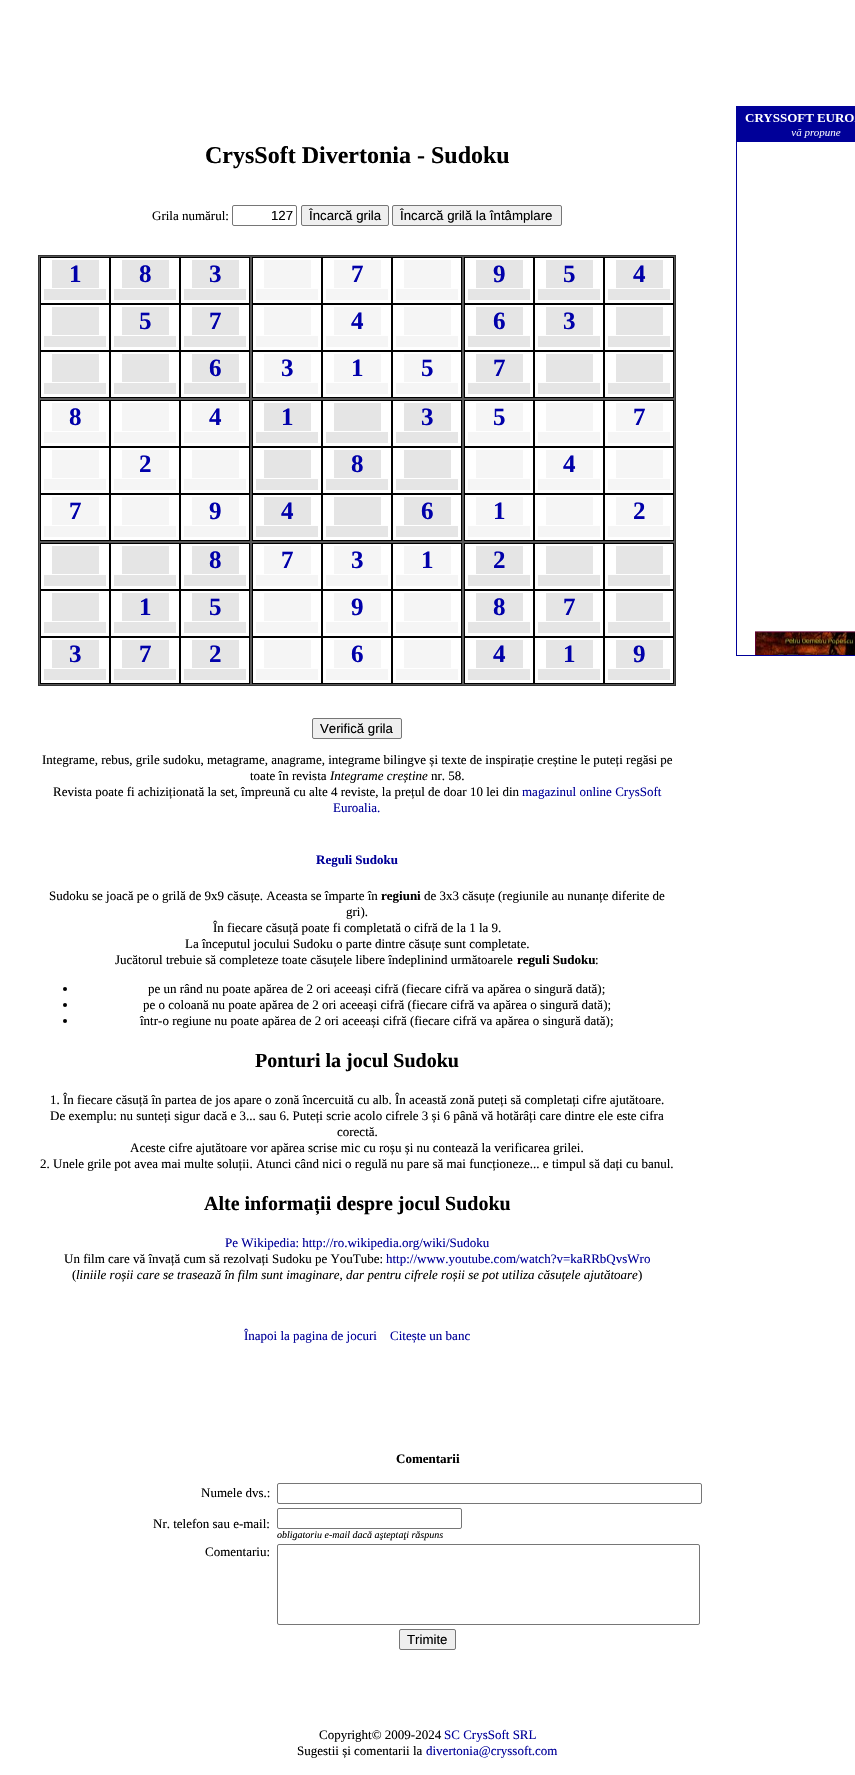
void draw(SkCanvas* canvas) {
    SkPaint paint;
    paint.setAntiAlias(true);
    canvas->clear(0xFFFFFFFF);
    SkFont font1(fontMgr->matchFamilyStyle("Liberation Serif", SkFontStyle::Bold()), 24);
    font1.setSubpixel(true);
    paint.setColor(0xFF000000);
    canvas->drawString("CrysSoft Divertonia - Sudoku", 205, 163, font1, paint);
    SkFont font2(fontMgr->matchFamilyStyle("Liberation Serif", SkFontStyle::Normal()), 13);
    font2.setSubpixel(true);
    canvas->drawString("Grila numărul:", 152, 220, font2, paint);
    paint.setStyle(SkPaint::kStroke_Style);
    paint.setStrokeWidth(1);
    paint.setColor(0xFF767676);
    canvas->drawRoundRect(SkRect::MakeXYWH(232.5f, 205.5f, 64, 20), 1.5f, 1.5f, paint);
    SkFont font3(fontMgr->matchFamilyStyle("Liberation Sans", SkFontStyle::Normal()), 13.25f);
    font3.setSubpixel(true);
    paint.setStyle(SkPaint::kFill_Style);
    paint.setColor(0xFF000000);
    canvas->drawString("127", 271, 220, font3, paint);
    paint.setColor(0xFFEFEFEF);
    canvas->drawRoundRect(SkRect::MakeXYWH(301.5f, 205.5f, 87, 20), 1.5f, 1.5f, paint);
    paint.setStyle(SkPaint::kStroke_Style);
    paint.setColor(0xFF767676);
    canvas->drawRoundRect(SkRect::MakeXYWH(301.5f, 205.5f, 87, 20), 1.5f, 1.5f, paint);
    paint.setStyle(SkPaint::kFill_Style);
    paint.setColor(0xFF000000);
    canvas->drawString("Încarcă grila", 309, 220, font3, paint);
    paint.setColor(0xFFEFEFEF);
    canvas->drawRoundRect(SkRect::MakeXYWH(392.5f, 205.5f, 169, 20), 1.5f, 1.5f, paint);
    paint.setStyle(SkPaint::kStroke_Style);
    paint.setColor(0xFF767676);
    canvas->drawRoundRect(SkRect::MakeXYWH(392.5f, 205.5f, 169, 20), 1.5f, 1.5f, paint);
    paint.setStyle(SkPaint::kFill_Style);
    paint.setColor(0xFF000000);
    canvas->drawString("Încarcă grilă la întâmplare", 400, 220, font3, paint);
    paint.setStyle(SkPaint::kStroke_Style);
    paint.setColor(0xFF333333);
    canvas->drawRect(SkRect::MakeXYWH(38.5f, 255.5f, 637, 430), paint);
    paint.setColor(0xFF555555);
    canvas->drawRect(SkRect::MakeXYWH(39.5f, 256.5f, 211, 142), paint);
    paint.setColor(0xFF000000);
    canvas->drawRect(SkRect::MakeXYWH(40.5f, 257.5f, 69, 46), paint);
    paint.setStyle(SkPaint::kFill_Style);
    paint.setColor(0xFFE5E5E5);
    canvas->drawRect(SkRect::MakeXYWH(52, 260, 47, 28), paint);
    SkFont font4(fontMgr->matchFamilyStyle("Liberation Serif", SkFontStyle::Bold()), 25);
    font4.setSubpixel(true);
    paint.setColor(0xFF0000AA);
    canvas->drawString("1", 69, 282, font4, paint);
    paint.setColor(0xFFE5E5E5);
    canvas->drawRect(SkRect::MakeXYWH(44, 289, 62, 11), paint);
    paint.setStyle(SkPaint::kStroke_Style);
    paint.setColor(0xFF000000);
    canvas->drawRect(SkRect::MakeXYWH(110.5f, 257.5f, 69, 46), paint);
    paint.setStyle(SkPaint::kFill_Style);
    paint.setColor(0xFFE5E5E5);
    canvas->drawRect(SkRect::MakeXYWH(122, 260, 47, 28), paint);
    paint.setColor(0xFF0000AA);
    canvas->drawString("8", 139, 282, font4, paint);
    paint.setColor(0xFFE5E5E5);
    canvas->drawRect(SkRect::MakeXYWH(114, 289, 62, 11), paint);
    paint.setStyle(SkPaint::kStroke_Style);
    paint.setColor(0xFF000000);
    canvas->drawRect(SkRect::MakeXYWH(180.5f, 257.5f, 69, 46), paint);
    paint.setStyle(SkPaint::kFill_Style);
    paint.setColor(0xFFE5E5E5);
    canvas->drawRect(SkRect::MakeXYWH(192, 260, 47, 28), paint);
    paint.setColor(0xFF0000AA);
    canvas->drawString("3", 209, 282, font4, paint);
    paint.setColor(0xFFE5E5E5);
    canvas->drawRect(SkRect::MakeXYWH(184, 289, 62, 11), paint);
    paint.setStyle(SkPaint::kStroke_Style);
    paint.setColor(0xFF000000);
    canvas->drawRect(SkRect::MakeXYWH(40.5f, 304.5f, 69, 46), paint);
    paint.setStyle(SkPaint::kFill_Style);
    paint.setColor(0xFFE5E5E5);
    canvas->drawRect(SkRect::MakeXYWH(52, 307, 47, 28), paint);
    canvas->drawRect(SkRect::MakeXYWH(44, 336, 62, 11), paint);
    paint.setStyle(SkPaint::kStroke_Style);
    paint.setColor(0xFF000000);
    canvas->drawRect(SkRect::MakeXYWH(110.5f, 304.5f, 69, 46), paint);
    paint.setStyle(SkPaint::kFill_Style);
    paint.setColor(0xFFE5E5E5);
    canvas->drawRect(SkRect::MakeXYWH(122, 307, 47, 28), paint);
    paint.setColor(0xFF0000AA);
    canvas->drawString("5", 139, 329, font4, paint);
    paint.setColor(0xFFE5E5E5);
    canvas->drawRect(SkRect::MakeXYWH(114, 336, 62, 11), paint);
    paint.setStyle(SkPaint::kStroke_Style);
    paint.setColor(0xFF000000);
    canvas->drawRect(SkRect::MakeXYWH(180.5f, 304.5f, 69, 46), paint);
    paint.setStyle(SkPaint::kFill_Style);
    paint.setColor(0xFFE5E5E5);
    canvas->drawRect(SkRect::MakeXYWH(192, 307, 47, 28), paint);
    paint.setColor(0xFF0000AA);
    canvas->drawString("7", 209, 329, font4, paint);
    paint.setColor(0xFFE5E5E5);
    canvas->drawRect(SkRect::MakeXYWH(184, 336, 62, 11), paint);
    paint.setStyle(SkPaint::kStroke_Style);
    paint.setColor(0xFF000000);
    canvas->drawRect(SkRect::MakeXYWH(40.5f, 351.5f, 69, 46), paint);
    paint.setStyle(SkPaint::kFill_Style);
    paint.setColor(0xFFE5E5E5);
    canvas->drawRect(SkRect::MakeXYWH(52, 354, 47, 28), paint);
    canvas->drawRect(SkRect::MakeXYWH(44, 383, 62, 11), paint);
    paint.setStyle(SkPaint::kStroke_Style);
    paint.setColor(0xFF000000);
    canvas->drawRect(SkRect::MakeXYWH(110.5f, 351.5f, 69, 46), paint);
    paint.setStyle(SkPaint::kFill_Style);
    paint.setColor(0xFFE5E5E5);
    canvas->drawRect(SkRect::MakeXYWH(122, 354, 47, 28), paint);
    canvas->drawRect(SkRect::MakeXYWH(114, 383, 62, 11), paint);
    paint.setStyle(SkPaint::kStroke_Style);
    paint.setColor(0xFF000000);
    canvas->drawRect(SkRect::MakeXYWH(180.5f, 351.5f, 69, 46), paint);
    paint.setStyle(SkPaint::kFill_Style);
    paint.setColor(0xFFE5E5E5);
    canvas->drawRect(SkRect::MakeXYWH(192, 354, 47, 28), paint);
    paint.setColor(0xFF0000AA);
    canvas->drawString("6", 209, 376, font4, paint);
    paint.setColor(0xFFE5E5E5);
    canvas->drawRect(SkRect::MakeXYWH(184, 383, 62, 11), paint);
    paint.setStyle(SkPaint::kStroke_Style);
    paint.setColor(0xFF555555);
    canvas->drawRect(SkRect::MakeXYWH(251.5f, 256.5f, 211, 142), paint);
    paint.setColor(0xFF000000);
    canvas->drawRect(SkRect::MakeXYWH(252.5f, 257.5f, 69, 46), paint);
    paint.setStyle(SkPaint::kFill_Style);
    paint.setColor(0xFFF5F5F5);
    canvas->drawRect(SkRect::MakeXYWH(264, 260, 47, 28), paint);
    canvas->drawRect(SkRect::MakeXYWH(256, 289, 62, 11), paint);
    paint.setStyle(SkPaint::kStroke_Style);
    paint.setColor(0xFF000000);
    canvas->drawRect(SkRect::MakeXYWH(322.5f, 257.5f, 69, 46), paint);
    paint.setStyle(SkPaint::kFill_Style);
    paint.setColor(0xFFF5F5F5);
    canvas->drawRect(SkRect::MakeXYWH(334, 260, 47, 28), paint);
    paint.setColor(0xFF0000AA);
    canvas->drawString("7", 351, 282, font4, paint);
    paint.setColor(0xFFF5F5F5);
    canvas->drawRect(SkRect::MakeXYWH(326, 289, 62, 11), paint);
    paint.setStyle(SkPaint::kStroke_Style);
    paint.setColor(0xFF000000);
    canvas->drawRect(SkRect::MakeXYWH(392.5f, 257.5f, 69, 46), paint);
    paint.setStyle(SkPaint::kFill_Style);
    paint.setColor(0xFFF5F5F5);
    canvas->drawRect(SkRect::MakeXYWH(404, 260, 47, 28), paint);
    canvas->drawRect(SkRect::MakeXYWH(396, 289, 62, 11), paint);
    paint.setStyle(SkPaint::kStroke_Style);
    paint.setColor(0xFF000000);
    canvas->drawRect(SkRect::MakeXYWH(252.5f, 304.5f, 69, 46), paint);
    paint.setStyle(SkPaint::kFill_Style);
    paint.setColor(0xFFF5F5F5);
    canvas->drawRect(SkRect::MakeXYWH(264, 307, 47, 28), paint);
    canvas->drawRect(SkRect::MakeXYWH(256, 336, 62, 11), paint);
    paint.setStyle(SkPaint::kStroke_Style);
    paint.setColor(0xFF000000);
    canvas->drawRect(SkRect::MakeXYWH(322.5f, 304.5f, 69, 46), paint);
    paint.setStyle(SkPaint::kFill_Style);
    paint.setColor(0xFFF5F5F5);
    canvas->drawRect(SkRect::MakeXYWH(334, 307, 47, 28), paint);
    paint.setColor(0xFF0000AA);
    canvas->drawString("4", 351, 329, font4, paint);
    paint.setColor(0xFFF5F5F5);
    canvas->drawRect(SkRect::MakeXYWH(326, 336, 62, 11), paint);
    paint.setStyle(SkPaint::kStroke_Style);
    paint.setColor(0xFF000000);
    canvas->drawRect(SkRect::MakeXYWH(392.5f, 304.5f, 69, 46), paint);
    paint.setStyle(SkPaint::kFill_Style);
    paint.setColor(0xFFF5F5F5);
    canvas->drawRect(SkRect::MakeXYWH(404, 307, 47, 28), paint);
    canvas->drawRect(SkRect::MakeXYWH(396, 336, 62, 11), paint);
    paint.setStyle(SkPaint::kStroke_Style);
    paint.setColor(0xFF000000);
    canvas->drawRect(SkRect::MakeXYWH(252.5f, 351.5f, 69, 46), paint);
    paint.setStyle(SkPaint::kFill_Style);
    paint.setColor(0xFFF5F5F5);
    canvas->drawRect(SkRect::MakeXYWH(264, 354, 47, 28), paint);
    paint.setColor(0xFF0000AA);
    canvas->drawString("3", 281, 376, font4, paint);
    paint.setColor(0xFFF5F5F5);
    canvas->drawRect(SkRect::MakeXYWH(256, 383, 62, 11), paint);
    paint.setStyle(SkPaint::kStroke_Style);
    paint.setColor(0xFF000000);
    canvas->drawRect(SkRect::MakeXYWH(322.5f, 351.5f, 69, 46), paint);
    paint.setStyle(SkPaint::kFill_Style);
    paint.setColor(0xFFF5F5F5);
    canvas->drawRect(SkRect::MakeXYWH(334, 354, 47, 28), paint);
    paint.setColor(0xFF0000AA);
    canvas->drawString("1", 351, 376, font4, paint);
    paint.setColor(0xFFF5F5F5);
    canvas->drawRect(SkRect::MakeXYWH(326, 383, 62, 11), paint);
    paint.setStyle(SkPaint::kStroke_Style);
    paint.setColor(0xFF000000);
    canvas->drawRect(SkRect::MakeXYWH(392.5f, 351.5f, 69, 46), paint);
    paint.setStyle(SkPaint::kFill_Style);
    paint.setColor(0xFFF5F5F5);
    canvas->drawRect(SkRect::MakeXYWH(404, 354, 47, 28), paint);
    paint.setColor(0xFF0000AA);
    canvas->drawString("5", 421, 376, font4, paint);
    paint.setColor(0xFFF5F5F5);
    canvas->drawRect(SkRect::MakeXYWH(396, 383, 62, 11), paint);
    paint.setStyle(SkPaint::kStroke_Style);
    paint.setColor(0xFF555555);
    canvas->drawRect(SkRect::MakeXYWH(463.5f, 256.5f, 211, 142), paint);
    paint.setColor(0xFF000000);
    canvas->drawRect(SkRect::MakeXYWH(464.5f, 257.5f, 69, 46), paint);
    paint.setStyle(SkPaint::kFill_Style);
    paint.setColor(0xFFE5E5E5);
    canvas->drawRect(SkRect::MakeXYWH(476, 260, 47, 28), paint);
    paint.setColor(0xFF0000AA);
    canvas->drawString("9", 493, 282, font4, paint);
    paint.setColor(0xFFE5E5E5);
    canvas->drawRect(SkRect::MakeXYWH(468, 289, 62, 11), paint);
    paint.setStyle(SkPaint::kStroke_Style);
    paint.setColor(0xFF000000);
    canvas->drawRect(SkRect::MakeXYWH(534.5f, 257.5f, 69, 46), paint);
    paint.setStyle(SkPaint::kFill_Style);
    paint.setColor(0xFFE5E5E5);
    canvas->drawRect(SkRect::MakeXYWH(546, 260, 47, 28), paint);
    paint.setColor(0xFF0000AA);
    canvas->drawString("5", 563, 282, font4, paint);
    paint.setColor(0xFFE5E5E5);
    canvas->drawRect(SkRect::MakeXYWH(538, 289, 62, 11), paint);
    paint.setStyle(SkPaint::kStroke_Style);
    paint.setColor(0xFF000000);
    canvas->drawRect(SkRect::MakeXYWH(604.5f, 257.5f, 69, 46), paint);
    paint.setStyle(SkPaint::kFill_Style);
    paint.setColor(0xFFE5E5E5);
    canvas->drawRect(SkRect::MakeXYWH(616, 260, 47, 28), paint);
    paint.setColor(0xFF0000AA);
    canvas->drawString("4", 633, 282, font4, paint);
    paint.setColor(0xFFE5E5E5);
    canvas->drawRect(SkRect::MakeXYWH(608, 289, 62, 11), paint);
    paint.setStyle(SkPaint::kStroke_Style);
    paint.setColor(0xFF000000);
    canvas->drawRect(SkRect::MakeXYWH(464.5f, 304.5f, 69, 46), paint);
    paint.setStyle(SkPaint::kFill_Style);
    paint.setColor(0xFFE5E5E5);
    canvas->drawRect(SkRect::MakeXYWH(476, 307, 47, 28), paint);
    paint.setColor(0xFF0000AA);
    canvas->drawString("6", 493, 329, font4, paint);
    paint.setColor(0xFFE5E5E5);
    canvas->drawRect(SkRect::MakeXYWH(468, 336, 62, 11), paint);
    paint.setStyle(SkPaint::kStroke_Style);
    paint.setColor(0xFF000000);
    canvas->drawRect(SkRect::MakeXYWH(534.5f, 304.5f, 69, 46), paint);
    paint.setStyle(SkPaint::kFill_Style);
    paint.setColor(0xFFE5E5E5);
    canvas->drawRect(SkRect::MakeXYWH(546, 307, 47, 28), paint);
    paint.setColor(0xFF0000AA);
    canvas->drawString("3", 563, 329, font4, paint);
    paint.setColor(0xFFE5E5E5);
    canvas->drawRect(SkRect::MakeXYWH(538, 336, 62, 11), paint);
    paint.setStyle(SkPaint::kStroke_Style);
    paint.setColor(0xFF000000);
    canvas->drawRect(SkRect::MakeXYWH(604.5f, 304.5f, 69, 46), paint);
    paint.setStyle(SkPaint::kFill_Style);
    paint.setColor(0xFFE5E5E5);
    canvas->drawRect(SkRect::MakeXYWH(616, 307, 47, 28), paint);
    canvas->drawRect(SkRect::MakeXYWH(608, 336, 62, 11), paint);
    paint.setStyle(SkPaint::kStroke_Style);
    paint.setColor(0xFF000000);
    canvas->drawRect(SkRect::MakeXYWH(464.5f, 351.5f, 69, 46), paint);
    paint.setStyle(SkPaint::kFill_Style);
    paint.setColor(0xFFE5E5E5);
    canvas->drawRect(SkRect::MakeXYWH(476, 354, 47, 28), paint);
    paint.setColor(0xFF0000AA);
    canvas->drawString("7", 493, 376, font4, paint);
    paint.setColor(0xFFE5E5E5);
    canvas->drawRect(SkRect::MakeXYWH(468, 383, 62, 11), paint);
    paint.setStyle(SkPaint::kStroke_Style);
    paint.setColor(0xFF000000);
    canvas->drawRect(SkRect::MakeXYWH(534.5f, 351.5f, 69, 46), paint);
    paint.setStyle(SkPaint::kFill_Style);
    paint.setColor(0xFFE5E5E5);
    canvas->drawRect(SkRect::MakeXYWH(546, 354, 47, 28), paint);
    canvas->drawRect(SkRect::MakeXYWH(538, 383, 62, 11), paint);
    paint.setStyle(SkPaint::kStroke_Style);
    paint.setColor(0xFF000000);
    canvas->drawRect(SkRect::MakeXYWH(604.5f, 351.5f, 69, 46), paint);
    paint.setStyle(SkPaint::kFill_Style);
    paint.setColor(0xFFE5E5E5);
    canvas->drawRect(SkRect::MakeXYWH(616, 354, 47, 28), paint);
    canvas->drawRect(SkRect::MakeXYWH(608, 383, 62, 11), paint);
    paint.setStyle(SkPaint::kStroke_Style);
    paint.setColor(0xFF555555);
    canvas->drawRect(SkRect::MakeXYWH(39.5f, 399.5f, 211, 142), paint);
    paint.setColor(0xFF000000);
    canvas->drawRect(SkRect::MakeXYWH(40.5f, 400.5f, 69, 46), paint);
    paint.setStyle(SkPaint::kFill_Style);
    paint.setColor(0xFFF5F5F5);
    canvas->drawRect(SkRect::MakeXYWH(52, 403, 47, 28), paint);
    paint.setColor(0xFF0000AA);
    canvas->drawString("8", 69, 425, font4, paint);
    paint.setColor(0xFFF5F5F5);
    canvas->drawRect(SkRect::MakeXYWH(44, 432, 62, 11), paint);
    paint.setStyle(SkPaint::kStroke_Style);
    paint.setColor(0xFF000000);
    canvas->drawRect(SkRect::MakeXYWH(110.5f, 400.5f, 69, 46), paint);
    paint.setStyle(SkPaint::kFill_Style);
    paint.setColor(0xFFF5F5F5);
    canvas->drawRect(SkRect::MakeXYWH(122, 403, 47, 28), paint);
    canvas->drawRect(SkRect::MakeXYWH(114, 432, 62, 11), paint);
    paint.setStyle(SkPaint::kStroke_Style);
    paint.setColor(0xFF000000);
    canvas->drawRect(SkRect::MakeXYWH(180.5f, 400.5f, 69, 46), paint);
    paint.setStyle(SkPaint::kFill_Style);
    paint.setColor(0xFFF5F5F5);
    canvas->drawRect(SkRect::MakeXYWH(192, 403, 47, 28), paint);
    paint.setColor(0xFF0000AA);
    canvas->drawString("4", 209, 425, font4, paint);
    paint.setColor(0xFFF5F5F5);
    canvas->drawRect(SkRect::MakeXYWH(184, 432, 62, 11), paint);
    paint.setStyle(SkPaint::kStroke_Style);
    paint.setColor(0xFF000000);
    canvas->drawRect(SkRect::MakeXYWH(40.5f, 447.5f, 69, 46), paint);
    paint.setStyle(SkPaint::kFill_Style);
    paint.setColor(0xFFF5F5F5);
    canvas->drawRect(SkRect::MakeXYWH(52, 450, 47, 28), paint);
    canvas->drawRect(SkRect::MakeXYWH(44, 479, 62, 11), paint);
    paint.setStyle(SkPaint::kStroke_Style);
    paint.setColor(0xFF000000);
    canvas->drawRect(SkRect::MakeXYWH(110.5f, 447.5f, 69, 46), paint);
    paint.setStyle(SkPaint::kFill_Style);
    paint.setColor(0xFFF5F5F5);
    canvas->drawRect(SkRect::MakeXYWH(122, 450, 47, 28), paint);
    paint.setColor(0xFF0000AA);
    canvas->drawString("2", 139, 472, font4, paint);
    paint.setColor(0xFFF5F5F5);
    canvas->drawRect(SkRect::MakeXYWH(114, 479, 62, 11), paint);
    paint.setStyle(SkPaint::kStroke_Style);
    paint.setColor(0xFF000000);
    canvas->drawRect(SkRect::MakeXYWH(180.5f, 447.5f, 69, 46), paint);
    paint.setStyle(SkPaint::kFill_Style);
    paint.setColor(0xFFF5F5F5);
    canvas->drawRect(SkRect::MakeXYWH(192, 450, 47, 28), paint);
    canvas->drawRect(SkRect::MakeXYWH(184, 479, 62, 11), paint);
    paint.setStyle(SkPaint::kStroke_Style);
    paint.setColor(0xFF000000);
    canvas->drawRect(SkRect::MakeXYWH(40.5f, 494.5f, 69, 46), paint);
    paint.setStyle(SkPaint::kFill_Style);
    paint.setColor(0xFFF5F5F5);
    canvas->drawRect(SkRect::MakeXYWH(52, 497, 47, 28), paint);
    paint.setColor(0xFF0000AA);
    canvas->drawString("7", 69, 519, font4, paint);
    paint.setColor(0xFFF5F5F5);
    canvas->drawRect(SkRect::MakeXYWH(44, 526, 62, 11), paint);
    paint.setStyle(SkPaint::kStroke_Style);
    paint.setColor(0xFF000000);
    canvas->drawRect(SkRect::MakeXYWH(110.5f, 494.5f, 69, 46), paint);
    paint.setStyle(SkPaint::kFill_Style);
    paint.setColor(0xFFF5F5F5);
    canvas->drawRect(SkRect::MakeXYWH(122, 497, 47, 28), paint);
    canvas->drawRect(SkRect::MakeXYWH(114, 526, 62, 11), paint);
    paint.setStyle(SkPaint::kStroke_Style);
    paint.setColor(0xFF000000);
    canvas->drawRect(SkRect::MakeXYWH(180.5f, 494.5f, 69, 46), paint);
    paint.setStyle(SkPaint::kFill_Style);
    paint.setColor(0xFFF5F5F5);
    canvas->drawRect(SkRect::MakeXYWH(192, 497, 47, 28), paint);
    paint.setColor(0xFF0000AA);
    canvas->drawString("9", 209, 519, font4, paint);
    paint.setColor(0xFFF5F5F5);
    canvas->drawRect(SkRect::MakeXYWH(184, 526, 62, 11), paint);
    paint.setStyle(SkPaint::kStroke_Style);
    paint.setColor(0xFF555555);
    canvas->drawRect(SkRect::MakeXYWH(251.5f, 399.5f, 211, 142), paint);
    paint.setColor(0xFF000000);
    canvas->drawRect(SkRect::MakeXYWH(252.5f, 400.5f, 69, 46), paint);
    paint.setStyle(SkPaint::kFill_Style);
    paint.setColor(0xFFE5E5E5);
    canvas->drawRect(SkRect::MakeXYWH(264, 403, 47, 28), paint);
    paint.setColor(0xFF0000AA);
    canvas->drawString("1", 281, 425, font4, paint);
    paint.setColor(0xFFE5E5E5);
    canvas->drawRect(SkRect::MakeXYWH(256, 432, 62, 11), paint);
    paint.setStyle(SkPaint::kStroke_Style);
    paint.setColor(0xFF000000);
    canvas->drawRect(SkRect::MakeXYWH(322.5f, 400.5f, 69, 46), paint);
    paint.setStyle(SkPaint::kFill_Style);
    paint.setColor(0xFFE5E5E5);
    canvas->drawRect(SkRect::MakeXYWH(334, 403, 47, 28), paint);
    canvas->drawRect(SkRect::MakeXYWH(326, 432, 62, 11), paint);
    paint.setStyle(SkPaint::kStroke_Style);
    paint.setColor(0xFF000000);
    canvas->drawRect(SkRect::MakeXYWH(392.5f, 400.5f, 69, 46), paint);
    paint.setStyle(SkPaint::kFill_Style);
    paint.setColor(0xFFE5E5E5);
    canvas->drawRect(SkRect::MakeXYWH(404, 403, 47, 28), paint);
    paint.setColor(0xFF0000AA);
    canvas->drawString("3", 421, 425, font4, paint);
    paint.setColor(0xFFE5E5E5);
    canvas->drawRect(SkRect::MakeXYWH(396, 432, 62, 11), paint);
    paint.setStyle(SkPaint::kStroke_Style);
    paint.setColor(0xFF000000);
    canvas->drawRect(SkRect::MakeXYWH(252.5f, 447.5f, 69, 46), paint);
    paint.setStyle(SkPaint::kFill_Style);
    paint.setColor(0xFFE5E5E5);
    canvas->drawRect(SkRect::MakeXYWH(264, 450, 47, 28), paint);
    canvas->drawRect(SkRect::MakeXYWH(256, 479, 62, 11), paint);
    paint.setStyle(SkPaint::kStroke_Style);
    paint.setColor(0xFF000000);
    canvas->drawRect(SkRect::MakeXYWH(322.5f, 447.5f, 69, 46), paint);
    paint.setStyle(SkPaint::kFill_Style);
    paint.setColor(0xFFE5E5E5);
    canvas->drawRect(SkRect::MakeXYWH(334, 450, 47, 28), paint);
    paint.setColor(0xFF0000AA);
    canvas->drawString("8", 351, 472, font4, paint);
    paint.setColor(0xFFE5E5E5);
    canvas->drawRect(SkRect::MakeXYWH(326, 479, 62, 11), paint);
    paint.setStyle(SkPaint::kStroke_Style);
    paint.setColor(0xFF000000);
    canvas->drawRect(SkRect::MakeXYWH(392.5f, 447.5f, 69, 46), paint);
    paint.setStyle(SkPaint::kFill_Style);
    paint.setColor(0xFFE5E5E5);
    canvas->drawRect(SkRect::MakeXYWH(404, 450, 47, 28), paint);
    canvas->drawRect(SkRect::MakeXYWH(396, 479, 62, 11), paint);
    paint.setStyle(SkPaint::kStroke_Style);
    paint.setColor(0xFF000000);
    canvas->drawRect(SkRect::MakeXYWH(252.5f, 494.5f, 69, 46), paint);
    paint.setStyle(SkPaint::kFill_Style);
    paint.setColor(0xFFE5E5E5);
    canvas->drawRect(SkRect::MakeXYWH(264, 497, 47, 28), paint);
    paint.setColor(0xFF0000AA);
    canvas->drawString("4", 281, 519, font4, paint);
    paint.setColor(0xFFE5E5E5);
    canvas->drawRect(SkRect::MakeXYWH(256, 526, 62, 11), paint);
    paint.setStyle(SkPaint::kStroke_Style);
    paint.setColor(0xFF000000);
    canvas->drawRect(SkRect::MakeXYWH(322.5f, 494.5f, 69, 46), paint);
    paint.setStyle(SkPaint::kFill_Style);
    paint.setColor(0xFFE5E5E5);
    canvas->drawRect(SkRect::MakeXYWH(334, 497, 47, 28), paint);
    canvas->drawRect(SkRect::MakeXYWH(326, 526, 62, 11), paint);
    paint.setStyle(SkPaint::kStroke_Style);
    paint.setColor(0xFF000000);
    canvas->drawRect(SkRect::MakeXYWH(392.5f, 494.5f, 69, 46), paint);
    paint.setStyle(SkPaint::kFill_Style);
    paint.setColor(0xFFE5E5E5);
    canvas->drawRect(SkRect::MakeXYWH(404, 497, 47, 28), paint);
    paint.setColor(0xFF0000AA);
    canvas->drawString("6", 421, 519, font4, paint);
    paint.setColor(0xFFE5E5E5);
    canvas->drawRect(SkRect::MakeXYWH(396, 526, 62, 11), paint);
    paint.setStyle(SkPaint::kStroke_Style);
    paint.setColor(0xFF555555);
    canvas->drawRect(SkRect::MakeXYWH(463.5f, 399.5f, 211, 142), paint);
    paint.setColor(0xFF000000);
    canvas->drawRect(SkRect::MakeXYWH(464.5f, 400.5f, 69, 46), paint);
    paint.setStyle(SkPaint::kFill_Style);
    paint.setColor(0xFFF5F5F5);
    canvas->drawRect(SkRect::MakeXYWH(476, 403, 47, 28), paint);
    paint.setColor(0xFF0000AA);
    canvas->drawString("5", 493, 425, font4, paint);
    paint.setColor(0xFFF5F5F5);
    canvas->drawRect(SkRect::MakeXYWH(468, 432, 62, 11), paint);
    paint.setStyle(SkPaint::kStroke_Style);
    paint.setColor(0xFF000000);
    canvas->drawRect(SkRect::MakeXYWH(534.5f, 400.5f, 69, 46), paint);
    paint.setStyle(SkPaint::kFill_Style);
    paint.setColor(0xFFF5F5F5);
    canvas->drawRect(SkRect::MakeXYWH(546, 403, 47, 28), paint);
    canvas->drawRect(SkRect::MakeXYWH(538, 432, 62, 11), paint);
    paint.setStyle(SkPaint::kStroke_Style);
    paint.setColor(0xFF000000);
    canvas->drawRect(SkRect::MakeXYWH(604.5f, 400.5f, 69, 46), paint);
    paint.setStyle(SkPaint::kFill_Style);
    paint.setColor(0xFFF5F5F5);
    canvas->drawRect(SkRect::MakeXYWH(616, 403, 47, 28), paint);
    paint.setColor(0xFF0000AA);
    canvas->drawString("7", 633, 425, font4, paint);
    paint.setColor(0xFFF5F5F5);
    canvas->drawRect(SkRect::MakeXYWH(608, 432, 62, 11), paint);
    paint.setStyle(SkPaint::kStroke_Style);
    paint.setColor(0xFF000000);
    canvas->drawRect(SkRect::MakeXYWH(464.5f, 447.5f, 69, 46), paint);
    paint.setStyle(SkPaint::kFill_Style);
    paint.setColor(0xFFF5F5F5);
    canvas->drawRect(SkRect::MakeXYWH(476, 450, 47, 28), paint);
    canvas->drawRect(SkRect::MakeXYWH(468, 479, 62, 11), paint);
    paint.setStyle(SkPaint::kStroke_Style);
    paint.setColor(0xFF000000);
    canvas->drawRect(SkRect::MakeXYWH(534.5f, 447.5f, 69, 46), paint);
    paint.setStyle(SkPaint::kFill_Style);
    paint.setColor(0xFFF5F5F5);
    canvas->drawRect(SkRect::MakeXYWH(546, 450, 47, 28), paint);
    paint.setColor(0xFF0000AA);
    canvas->drawString("4", 563, 472, font4, paint);
    paint.setColor(0xFFF5F5F5);
    canvas->drawRect(SkRect::MakeXYWH(538, 479, 62, 11), paint);
    paint.setStyle(SkPaint::kStroke_Style);
    paint.setColor(0xFF000000);
    canvas->drawRect(SkRect::MakeXYWH(604.5f, 447.5f, 69, 46), paint);
    paint.setStyle(SkPaint::kFill_Style);
    paint.setColor(0xFFF5F5F5);
    canvas->drawRect(SkRect::MakeXYWH(616, 450, 47, 28), paint);
    canvas->drawRect(SkRect::MakeXYWH(608, 479, 62, 11), paint);
    paint.setStyle(SkPaint::kStroke_Style);
    paint.setColor(0xFF000000);
    canvas->drawRect(SkRect::MakeXYWH(464.5f, 494.5f, 69, 46), paint);
    paint.setStyle(SkPaint::kFill_Style);
    paint.setColor(0xFFF5F5F5);
    canvas->drawRect(SkRect::MakeXYWH(476, 497, 47, 28), paint);
    paint.setColor(0xFF0000AA);
    canvas->drawString("1", 493, 519, font4, paint);
    paint.setColor(0xFFF5F5F5);
    canvas->drawRect(SkRect::MakeXYWH(468, 526, 62, 11), paint);
    paint.setStyle(SkPaint::kStroke_Style);
    paint.setColor(0xFF000000);
    canvas->drawRect(SkRect::MakeXYWH(534.5f, 494.5f, 69, 46), paint);
    paint.setStyle(SkPaint::kFill_Style);
    paint.setColor(0xFFF5F5F5);
    canvas->drawRect(SkRect::MakeXYWH(546, 497, 47, 28), paint);
    canvas->drawRect(SkRect::MakeXYWH(538, 526, 62, 11), paint);
    paint.setStyle(SkPaint::kStroke_Style);
    paint.setColor(0xFF000000);
    canvas->drawRect(SkRect::MakeXYWH(604.5f, 494.5f, 69, 46), paint);
    paint.setStyle(SkPaint::kFill_Style);
    paint.setColor(0xFFF5F5F5);
    canvas->drawRect(SkRect::MakeXYWH(616, 497, 47, 28), paint);
    paint.setColor(0xFF0000AA);
    canvas->drawString("2", 633, 519, font4, paint);
    paint.setColor(0xFFF5F5F5);
    canvas->drawRect(SkRect::MakeXYWH(608, 526, 62, 11), paint);
    paint.setStyle(SkPaint::kStroke_Style);
    paint.setColor(0xFF555555);
    canvas->drawRect(SkRect::MakeXYWH(39.5f, 542.5f, 211, 142), paint);
    paint.setColor(0xFF000000);
    canvas->drawRect(SkRect::MakeXYWH(40.5f, 543.5f, 69, 46), paint);
    paint.setStyle(SkPaint::kFill_Style);
    paint.setColor(0xFFE5E5E5);
    canvas->drawRect(SkRect::MakeXYWH(52, 546, 47, 28), paint);
    canvas->drawRect(SkRect::MakeXYWH(44, 575, 62, 11), paint);
    paint.setStyle(SkPaint::kStroke_Style);
    paint.setColor(0xFF000000);
    canvas->drawRect(SkRect::MakeXYWH(110.5f, 543.5f, 69, 46), paint);
    paint.setStyle(SkPaint::kFill_Style);
    paint.setColor(0xFFE5E5E5);
    canvas->drawRect(SkRect::MakeXYWH(122, 546, 47, 28), paint);
    canvas->drawRect(SkRect::MakeXYWH(114, 575, 62, 11), paint);
    paint.setStyle(SkPaint::kStroke_Style);
    paint.setColor(0xFF000000);
    canvas->drawRect(SkRect::MakeXYWH(180.5f, 543.5f, 69, 46), paint);
    paint.setStyle(SkPaint::kFill_Style);
    paint.setColor(0xFFE5E5E5);
    canvas->drawRect(SkRect::MakeXYWH(192, 546, 47, 28), paint);
    paint.setColor(0xFF0000AA);
    canvas->drawString("8", 209, 568, font4, paint);
    paint.setColor(0xFFE5E5E5);
    canvas->drawRect(SkRect::MakeXYWH(184, 575, 62, 11), paint);
    paint.setStyle(SkPaint::kStroke_Style);
    paint.setColor(0xFF000000);
    canvas->drawRect(SkRect::MakeXYWH(40.5f, 590.5f, 69, 46), paint);
    paint.setStyle(SkPaint::kFill_Style);
    paint.setColor(0xFFE5E5E5);
    canvas->drawRect(SkRect::MakeXYWH(52, 593, 47, 28), paint);
    canvas->drawRect(SkRect::MakeXYWH(44, 622, 62, 11), paint);
    paint.setStyle(SkPaint::kStroke_Style);
    paint.setColor(0xFF000000);
    canvas->drawRect(SkRect::MakeXYWH(110.5f, 590.5f, 69, 46), paint);
    paint.setStyle(SkPaint::kFill_Style);
    paint.setColor(0xFFE5E5E5);
    canvas->drawRect(SkRect::MakeXYWH(122, 593, 47, 28), paint);
    paint.setColor(0xFF0000AA);
    canvas->drawString("1", 139, 615, font4, paint);
    paint.setColor(0xFFE5E5E5);
    canvas->drawRect(SkRect::MakeXYWH(114, 622, 62, 11), paint);
    paint.setStyle(SkPaint::kStroke_Style);
    paint.setColor(0xFF000000);
    canvas->drawRect(SkRect::MakeXYWH(180.5f, 590.5f, 69, 46), paint);
    paint.setStyle(SkPaint::kFill_Style);
    paint.setColor(0xFFE5E5E5);
    canvas->drawRect(SkRect::MakeXYWH(192, 593, 47, 28), paint);
    paint.setColor(0xFF0000AA);
    canvas->drawString("5", 209, 615, font4, paint);
    paint.setColor(0xFFE5E5E5);
    canvas->drawRect(SkRect::MakeXYWH(184, 622, 62, 11), paint);
    paint.setStyle(SkPaint::kStroke_Style);
    paint.setColor(0xFF000000);
    canvas->drawRect(SkRect::MakeXYWH(40.5f, 637.5f, 69, 46), paint);
    paint.setStyle(SkPaint::kFill_Style);
    paint.setColor(0xFFE5E5E5);
    canvas->drawRect(SkRect::MakeXYWH(52, 640, 47, 28), paint);
    paint.setColor(0xFF0000AA);
    canvas->drawString("3", 69, 662, font4, paint);
    paint.setColor(0xFFE5E5E5);
    canvas->drawRect(SkRect::MakeXYWH(44, 669, 62, 11), paint);
    paint.setStyle(SkPaint::kStroke_Style);
    paint.setColor(0xFF000000);
    canvas->drawRect(SkRect::MakeXYWH(110.5f, 637.5f, 69, 46), paint);
    paint.setStyle(SkPaint::kFill_Style);
    paint.setColor(0xFFE5E5E5);
    canvas->drawRect(SkRect::MakeXYWH(122, 640, 47, 28), paint);
    paint.setColor(0xFF0000AA);
    canvas->drawString("7", 139, 662, font4, paint);
    paint.setColor(0xFFE5E5E5);
    canvas->drawRect(SkRect::MakeXYWH(114, 669, 62, 11), paint);
    paint.setStyle(SkPaint::kStroke_Style);
    paint.setColor(0xFF000000);
    canvas->drawRect(SkRect::MakeXYWH(180.5f, 637.5f, 69, 46), paint);
    paint.setStyle(SkPaint::kFill_Style);
    paint.setColor(0xFFE5E5E5);
    canvas->drawRect(SkRect::MakeXYWH(192, 640, 47, 28), paint);
    paint.setColor(0xFF0000AA);
    canvas->drawString("2", 209, 662, font4, paint);
    paint.setColor(0xFFE5E5E5);
    canvas->drawRect(SkRect::MakeXYWH(184, 669, 62, 11), paint);
    paint.setStyle(SkPaint::kStroke_Style);
    paint.setColor(0xFF555555);
    canvas->drawRect(SkRect::MakeXYWH(251.5f, 542.5f, 211, 142), paint);
    paint.setColor(0xFF000000);
    canvas->drawRect(SkRect::MakeXYWH(252.5f, 543.5f, 69, 46), paint);
    paint.setStyle(SkPaint::kFill_Style);
    paint.setColor(0xFFF5F5F5);
    canvas->drawRect(SkRect::MakeXYWH(264, 546, 47, 28), paint);
    paint.setColor(0xFF0000AA);
    canvas->drawString("7", 281, 568, font4, paint);
    paint.setColor(0xFFF5F5F5);
    canvas->drawRect(SkRect::MakeXYWH(256, 575, 62, 11), paint);
    paint.setStyle(SkPaint::kStroke_Style);
    paint.setColor(0xFF000000);
    canvas->drawRect(SkRect::MakeXYWH(322.5f, 543.5f, 69, 46), paint);
    paint.setStyle(SkPaint::kFill_Style);
    paint.setColor(0xFFF5F5F5);
    canvas->drawRect(SkRect::MakeXYWH(334, 546, 47, 28), paint);
    paint.setColor(0xFF0000AA);
    canvas->drawString("3", 351, 568, font4, paint);
    paint.setColor(0xFFF5F5F5);
    canvas->drawRect(SkRect::MakeXYWH(326, 575, 62, 11), paint);
    paint.setStyle(SkPaint::kStroke_Style);
    paint.setColor(0xFF000000);
    canvas->drawRect(SkRect::MakeXYWH(392.5f, 543.5f, 69, 46), paint);
    paint.setStyle(SkPaint::kFill_Style);
    paint.setColor(0xFFF5F5F5);
    canvas->drawRect(SkRect::MakeXYWH(404, 546, 47, 28), paint);
    paint.setColor(0xFF0000AA);
    canvas->drawString("1", 421, 568, font4, paint);
    paint.setColor(0xFFF5F5F5);
    canvas->drawRect(SkRect::MakeXYWH(396, 575, 62, 11), paint);
    paint.setStyle(SkPaint::kStroke_Style);
    paint.setColor(0xFF000000);
    canvas->drawRect(SkRect::MakeXYWH(252.5f, 590.5f, 69, 46), paint);
    paint.setStyle(SkPaint::kFill_Style);
    paint.setColor(0xFFF5F5F5);
    canvas->drawRect(SkRect::MakeXYWH(264, 593, 47, 28), paint);
    canvas->drawRect(SkRect::MakeXYWH(256, 622, 62, 11), paint);
    paint.setStyle(SkPaint::kStroke_Style);
    paint.setColor(0xFF000000);
    canvas->drawRect(SkRect::MakeXYWH(322.5f, 590.5f, 69, 46), paint);
    paint.setStyle(SkPaint::kFill_Style);
    paint.setColor(0xFFF5F5F5);
    canvas->drawRect(SkRect::MakeXYWH(334, 593, 47, 28), paint);
    paint.setColor(0xFF0000AA);
    canvas->drawString("9", 351, 615, font4, paint);
    paint.setColor(0xFFF5F5F5);
    canvas->drawRect(SkRect::MakeXYWH(326, 622, 62, 11), paint);
    paint.setStyle(SkPaint::kStroke_Style);
    paint.setColor(0xFF000000);
    canvas->drawRect(SkRect::MakeXYWH(392.5f, 590.5f, 69, 46), paint);
    paint.setStyle(SkPaint::kFill_Style);
    paint.setColor(0xFFF5F5F5);
    canvas->drawRect(SkRect::MakeXYWH(404, 593, 47, 28), paint);
    canvas->drawRect(SkRect::MakeXYWH(396, 622, 62, 11), paint);
    paint.setStyle(SkPaint::kStroke_Style);
    paint.setColor(0xFF000000);
    canvas->drawRect(SkRect::MakeXYWH(252.5f, 637.5f, 69, 46), paint);
    paint.setStyle(SkPaint::kFill_Style);
    paint.setColor(0xFFF5F5F5);
    canvas->drawRect(SkRect::MakeXYWH(264, 640, 47, 28), paint);
    canvas->drawRect(SkRect::MakeXYWH(256, 669, 62, 11), paint);
    paint.setStyle(SkPaint::kStroke_Style);
    paint.setColor(0xFF000000);
    canvas->drawRect(SkRect::MakeXYWH(322.5f, 637.5f, 69, 46), paint);
    paint.setStyle(SkPaint::kFill_Style);
    paint.setColor(0xFFF5F5F5);
    canvas->drawRect(SkRect::MakeXYWH(334, 640, 47, 28), paint);
    paint.setColor(0xFF0000AA);
    canvas->drawString("6", 351, 662, font4, paint);
    paint.setColor(0xFFF5F5F5);
    canvas->drawRect(SkRect::MakeXYWH(326, 669, 62, 11), paint);
    paint.setStyle(SkPaint::kStroke_Style);
    paint.setColor(0xFF000000);
    canvas->drawRect(SkRect::MakeXYWH(392.5f, 637.5f, 69, 46), paint);
    paint.setStyle(SkPaint::kFill_Style);
    paint.setColor(0xFFF5F5F5);
    canvas->drawRect(SkRect::MakeXYWH(404, 640, 47, 28), paint);
    canvas->drawRect(SkRect::MakeXYWH(396, 669, 62, 11), paint);
    paint.setStyle(SkPaint::kStroke_Style);
    paint.setColor(0xFF555555);
    canvas->drawRect(SkRect::MakeXYWH(463.5f, 542.5f, 211, 142), paint);
    paint.setColor(0xFF000000);
    canvas->drawRect(SkRect::MakeXYWH(464.5f, 543.5f, 69, 46), paint);
    paint.setStyle(SkPaint::kFill_Style);
    paint.setColor(0xFFE5E5E5);
    canvas->drawRect(SkRect::MakeXYWH(476, 546, 47, 28), paint);
    paint.setColor(0xFF0000AA);
    canvas->drawString("2", 493, 568, font4, paint);
    paint.setColor(0xFFE5E5E5);
    canvas->drawRect(SkRect::MakeXYWH(468, 575, 62, 11), paint);
    paint.setStyle(SkPaint::kStroke_Style);
    paint.setColor(0xFF000000);
    canvas->drawRect(SkRect::MakeXYWH(534.5f, 543.5f, 69, 46), paint);
    paint.setStyle(SkPaint::kFill_Style);
    paint.setColor(0xFFE5E5E5);
    canvas->drawRect(SkRect::MakeXYWH(546, 546, 47, 28), paint);
    canvas->drawRect(SkRect::MakeXYWH(538, 575, 62, 11), paint);
    paint.setStyle(SkPaint::kStroke_Style);
    paint.setColor(0xFF000000);
    canvas->drawRect(SkRect::MakeXYWH(604.5f, 543.5f, 69, 46), paint);
    paint.setStyle(SkPaint::kFill_Style);
    paint.setColor(0xFFE5E5E5);
    canvas->drawRect(SkRect::MakeXYWH(616, 546, 47, 28), paint);
    canvas->drawRect(SkRect::MakeXYWH(608, 575, 62, 11), paint);
    paint.setStyle(SkPaint::kStroke_Style);
    paint.setColor(0xFF000000);
    canvas->drawRect(SkRect::MakeXYWH(464.5f, 590.5f, 69, 46), paint);
    paint.setStyle(SkPaint::kFill_Style);
    paint.setColor(0xFFE5E5E5);
    canvas->drawRect(SkRect::MakeXYWH(476, 593, 47, 28), paint);
    paint.setColor(0xFF0000AA);
    canvas->drawString("8", 493, 615, font4, paint);
    paint.setColor(0xFFE5E5E5);
    canvas->drawRect(SkRect::MakeXYWH(468, 622, 62, 11), paint);
    paint.setStyle(SkPaint::kStroke_Style);
    paint.setColor(0xFF000000);
    canvas->drawRect(SkRect::MakeXYWH(534.5f, 590.5f, 69, 46), paint);
    paint.setStyle(SkPaint::kFill_Style);
    paint.setColor(0xFFE5E5E5);
    canvas->drawRect(SkRect::MakeXYWH(546, 593, 47, 28), paint);
    paint.setColor(0xFF0000AA);
    canvas->drawString("7", 563, 615, font4, paint);
    paint.setColor(0xFFE5E5E5);
    canvas->drawRect(SkRect::MakeXYWH(538, 622, 62, 11), paint);
    paint.setStyle(SkPaint::kStroke_Style);
    paint.setColor(0xFF000000);
    canvas->drawRect(SkRect::MakeXYWH(604.5f, 590.5f, 69, 46), paint);
    paint.setStyle(SkPaint::kFill_Style);
    paint.setColor(0xFFE5E5E5);
    canvas->drawRect(SkRect::MakeXYWH(616, 593, 47, 28), paint);
    canvas->drawRect(SkRect::MakeXYWH(608, 622, 62, 11), paint);
    paint.setStyle(SkPaint::kStroke_Style);
    paint.setColor(0xFF000000);
    canvas->drawRect(SkRect::MakeXYWH(464.5f, 637.5f, 69, 46), paint);
    paint.setStyle(SkPaint::kFill_Style);
    paint.setColor(0xFFE5E5E5);
    canvas->drawRect(SkRect::MakeXYWH(476, 640, 47, 28), paint);
    paint.setColor(0xFF0000AA);
    canvas->drawString("4", 493, 662, font4, paint);
    paint.setColor(0xFFE5E5E5);
    canvas->drawRect(SkRect::MakeXYWH(468, 669, 62, 11), paint);
    paint.setStyle(SkPaint::kStroke_Style);
    paint.setColor(0xFF000000);
    canvas->drawRect(SkRect::MakeXYWH(534.5f, 637.5f, 69, 46), paint);
    paint.setStyle(SkPaint::kFill_Style);
    paint.setColor(0xFFE5E5E5);
    canvas->drawRect(SkRect::MakeXYWH(546, 640, 47, 28), paint);
    paint.setColor(0xFF0000AA);
    canvas->drawString("1", 563, 662, font4, paint);
    paint.setColor(0xFFE5E5E5);
    canvas->drawRect(SkRect::MakeXYWH(538, 669, 62, 11), paint);
    paint.setStyle(SkPaint::kStroke_Style);
    paint.setColor(0xFF000000);
    canvas->drawRect(SkRect::MakeXYWH(604.5f, 637.5f, 69, 46), paint);
    paint.setStyle(SkPaint::kFill_Style);
    paint.setColor(0xFFE5E5E5);
    canvas->drawRect(SkRect::MakeXYWH(616, 640, 47, 28), paint);
    paint.setColor(0xFF0000AA);
    canvas->drawString("9", 633, 662, font4, paint);
    paint.setColor(0xFFE5E5E5);
    canvas->drawRect(SkRect::MakeXYWH(608, 669, 62, 11), paint);
    paint.setColor(0xFFEFEFEF);
    canvas->drawRoundRect(SkRect::MakeXYWH(312.5f, 718.5f, 89, 20), 1.5f, 1.5f, paint);
    paint.setStyle(SkPaint::kStroke_Style);
    paint.setColor(0xFF767676);
    canvas->drawRoundRect(SkRect::MakeXYWH(312.5f, 718.5f, 89, 20), 1.5f, 1.5f, paint);
    paint.setStyle(SkPaint::kFill_Style);
    paint.setColor(0xFF000000);
    canvas->drawString("Verifică grila", 320, 733, font3, paint);
    canvas->drawString("Integrame, rebus, grile sudoku, metagrame, anagrame, integrame bilingve și texte de inspirație creștine le puteți regăsi pe", 42, 764, font2, paint);
    canvas->drawString("toate în revista", 250, 780, font2, paint);
    SkFont font5(fontMgr->matchFamilyStyle("Liberation Serif", SkFontStyle::Italic()), 13);
    font5.setSubpixel(true);
    canvas->drawString("Integrame creștine", 330, 780, font5, paint);
    canvas->drawString("nr. 58.", 431, 780, font2, paint);
    canvas->drawString("Revista poate fi achiziționată la set, împreună cu alte 4 reviste, la prețul de doar 10 lei din", 53, 796, font2, paint);
    paint.setColor(0xFF000099);
    canvas->drawString("magazinul online CrysSoft", 522, 796, font2, paint);
    canvas->drawString("Euroalia.", 333, 812, font2, paint);
    SkFont font6(fontMgr->matchFamilyStyle("Liberation Serif", SkFontStyle::Bold()), 13);
    font6.setSubpixel(true);
    canvas->drawString("Reguli Sudoku", 316, 864, font6, paint);
    paint.setColor(0xFF000000);
    canvas->drawString("Sudoku se joacă pe o grilă de 9x9 căsuțe. Aceasta se împarte în", 49, 900, font2, paint);
    canvas->drawString("regiuni", 381, 900, font6, paint);
    canvas->drawString("de 3x3 căsuțe (regiunile au nunanțe diferite de", 424, 900, font2, paint);
    canvas->drawString("gri).", 346, 916, font2, paint);
    canvas->drawString("În fiecare căsuță poate fi completată o cifră de la 1 la 9.", 213, 932, font2, paint);
    canvas->drawString("La începutul jocului Sudoku o parte dintre căsuțe sunt completate.", 185, 948, font2, paint);
    canvas->drawString("Jucătorul trebuie să completeze toate căsuțele libere îndeplinind următoarele", 115, 964, font2, paint);
    canvas->drawString("reguli Sudoku", 517, 964, font6, paint);
    canvas->drawString(":", 595, 964, font2, paint);
    canvas->drawCircle(65, 989, 2, paint);
    canvas->drawString("pe un rând nu poate apărea de 2 ori aceeași cifră (fiecare cifră va apărea o singură dată);", 148, 993, font2, paint);
    canvas->drawCircle(65, 1005, 2, paint);
    canvas->drawString("pe o coloană nu poate apărea de 2 ori aceeași cifră (fiecare cifră va apărea o singură dată);", 143, 1009, font2, paint);
    canvas->drawCircle(65, 1021, 2, paint);
    canvas->drawString("într-o regiune nu poate apărea de 2 ori aceeași cifră (fiecare cifră va apărea o singură dată);", 140, 1025, font2, paint);
    SkFont font7(fontMgr->matchFamilyStyle("Liberation Serif", SkFontStyle::Bold()), 20);
    font7.setSubpixel(true);
    canvas->drawString("Ponturi la jocul Sudoku", 255, 1067, font7, paint);
    canvas->drawString("1. În fiecare căsuță în partea de jos apare o zonă încercuită cu alb. În această zonă puteți să completați cifre ajutătoare.", 50, 1104, font2, paint);
    canvas->drawString("De exemplu: nu sunteți sigur dacă e 3... sau 6. Puteți scrie acolo cifrele 3 și 6 până vă hotărâți care dintre ele este cifra", 50, 1120, font2, paint);
    canvas->drawString("corectă.", 337, 1136, font2, paint);
    canvas->drawString("Aceste cifre ajutătoare vor apărea scrise mic cu roșu și nu contează la verificarea grilei.", 130, 1152, font2, paint);
    canvas->drawString("2. Unele grile pot avea mai multe soluții. Atunci când nici o regulă nu pare să mai funcționeze... e timpul să dați cu banul.", 40, 1168, font2, paint);
    canvas->drawString("Alte informații despre jocul Sudoku", 204, 1210, font7, paint);
    paint.setColor(0xFF000099);
    canvas->drawString("Pe Wikipedia: http://ro.wikipedia.org/wiki/Sudoku", 225, 1247, font2, paint);
    paint.setColor(0xFF000000);
    canvas->drawString("Un film care vă învață cum să rezolvați Sudoku pe YouTube:", 64, 1263, font2, paint);
    paint.setColor(0xFF000099);
    canvas->drawString("http://www.youtube.com/watch?v=kaRRbQvsWro", 386, 1263, font2, paint);
    paint.setColor(0xFF000000);
    canvas->drawString("(", 72, 1279, font2, paint);
    canvas->drawString("liniile roșii care se trasează în film sunt imaginare, dar pentru cifrele roșii se pot utiliza căsuțele ajutătoare", 76, 1279, font5, paint);
    canvas->drawString(")", 638, 1279, font2, paint);
    paint.setColor(0xFF000099);
    canvas->drawString("Înapoi la pagina de jocuri", 244, 1340, font2, paint);
    canvas->drawString("Citește un banc", 390, 1340, font2, paint);
    canvas->drawImageRect(SkImages::DeferredFromEncodedData(SkData::MakeFromFileName("img1.png")), SkRect::MakeXYWH(736, 106, 119, 550), SkSamplingOptions());
    paint.setColor(0xFF000000);
    canvas->drawString("Comentarii", 396, 1463, font6, paint);
    canvas->drawString("Numele dvs.:", 201, 1497, font2, paint);
    paint.setStyle(SkPaint::kStroke_Style);
    paint.setColor(0xFF767676);
    canvas->drawRoundRect(SkRect::MakeXYWH(277.5f, 1483.5f, 424, 20), 1.5f, 1.5f, paint);
    paint.setStyle(SkPaint::kFill_Style);
    paint.setColor(0xFF000000);
    canvas->drawString("Nr. telefon sau e-mail:", 153, 1528, font2, paint);
    paint.setStyle(SkPaint::kStroke_Style);
    paint.setColor(0xFF767676);
    canvas->drawRoundRect(SkRect::MakeXYWH(277.5f, 1508.5f, 184, 20), 1.5f, 1.5f, paint);
    SkFont font8(fontMgr->matchFamilyStyle("Liberation Serif", SkFontStyle::Italic()), 10);
    font8.setSubpixel(true);
    paint.setStyle(SkPaint::kFill_Style);
    paint.setColor(0xFF000000);
    canvas->drawString("obligatoriu e-mail dacă aşteptaţi răspuns", 277, 1538, font8, paint);
    canvas->drawString("Comentariu:", 205, 1556, font2, paint);
    paint.setStyle(SkPaint::kStroke_Style);
    paint.setColor(0xFF767676);
    canvas->drawRoundRect(SkRect::MakeXYWH(277.5f, 1544.5f, 422, 80), 1.5f, 1.5f, paint);
    paint.setStyle(SkPaint::kFill_Style);
    paint.setColor(0xFFEFEFEF);
    canvas->drawRoundRect(SkRect::MakeXYWH(399.5f, 1629.5f, 56, 20), 1.5f, 1.5f, paint);
    paint.setStyle(SkPaint::kStroke_Style);
    paint.setColor(0xFF767676);
    canvas->drawRoundRect(SkRect::MakeXYWH(399.5f, 1629.5f, 56, 20), 1.5f, 1.5f, paint);
    paint.setStyle(SkPaint::kFill_Style);
    paint.setColor(0xFF000000);
    canvas->drawString("Trimite", 407, 1644, font3, paint);
    canvas->drawString("Copyright© 2009-2024", 319, 1739, font2, paint);
    paint.setColor(0xFF000099);
    canvas->drawString("SC CrysSoft SRL", 444, 1739, font2, paint);
    paint.setColor(0xFF000000);
    canvas->drawString("Sugestii și comentarii la", 297, 1755, font2, paint);
    paint.setColor(0xFF000099);
    canvas->drawString("divertonia@cryssoft.com", 426, 1755, font2, paint);
}
